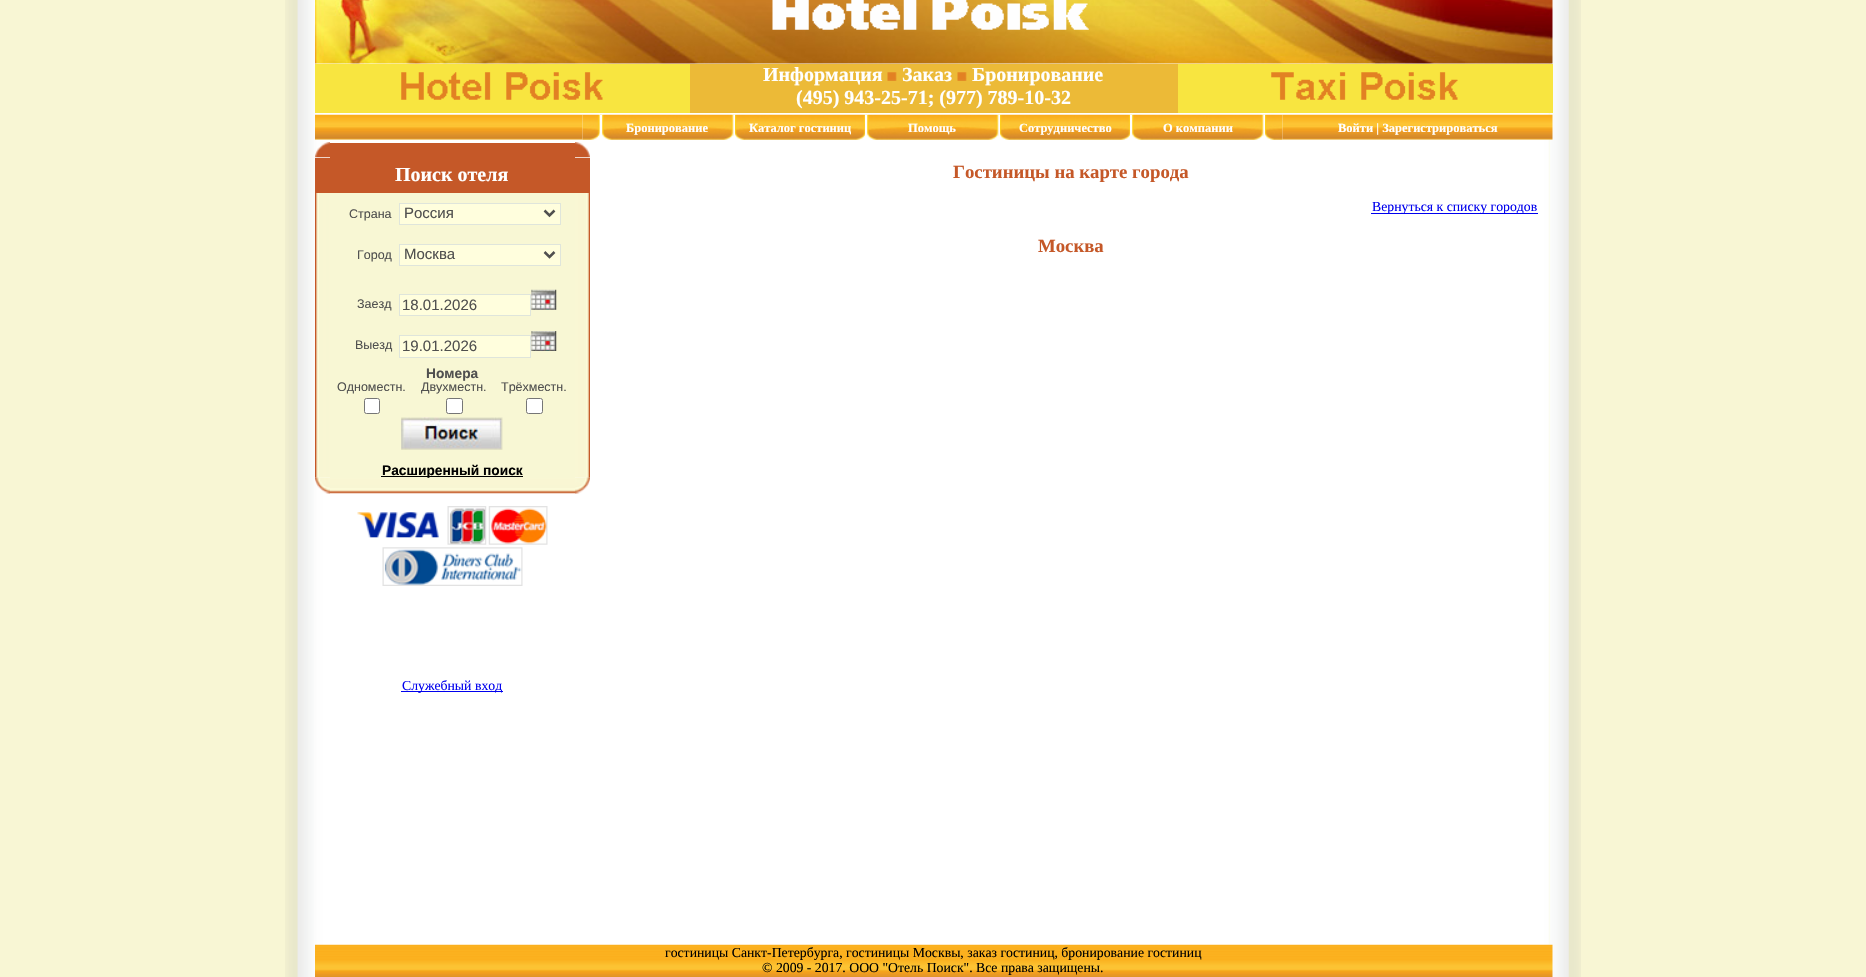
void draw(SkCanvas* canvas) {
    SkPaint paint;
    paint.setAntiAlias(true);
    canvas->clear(0xFFF8F6D4);
    canvas->drawImageRect(SkImages::DeferredFromEncodedData(SkData::MakeFromFileName("img1.png")), SkRect::MakeXYWH(285, 0, 1296, 977), SkSamplingOptions());
    canvas->drawImageRect(SkImages::DeferredFromEncodedData(SkData::MakeFromFileName("img2.png")), SkRect::MakeXYWH(315, 0, 1238, 64), SkSamplingOptions());
    canvas->drawImageRect(SkImages::DeferredFromEncodedData(SkData::MakeFromFileName("img3.png")), SkRect::MakeXYWH(772, 0, 317, 30), SkSamplingOptions());
    paint.setColor(0xFFF8E540);
    canvas->drawRect(SkRect::MakeXYWH(315, 64, 375, 49), paint);
    canvas->drawImageRect(SkImages::DeferredFromEncodedData(SkData::MakeFromFileName("img4.png")), SkRect::MakeXYWH(401, 72, 202, 28), SkSamplingOptions());
    paint.setColor(0xFFECBA37);
    canvas->drawRect(SkRect::MakeXYWH(690, 64, 488, 49), paint);
    SkFont font1(fontMgr->matchFamilyStyle("Liberation Serif", SkFontStyle::Bold()), 20);
    font1.setSubpixel(true);
    paint.setColor(0xFFFFFFFF);
    canvas->drawString("Информация", 763, 81, font1, paint);
    canvas->drawImageRect(SkImages::DeferredFromEncodedData(SkData::MakeFromFileName("img5.png")), SkRect::MakeXYWH(887, 72, 10, 9), SkSamplingOptions());
    canvas->drawString("Заказ", 902, 81, font1, paint);
    canvas->drawImageRect(SkImages::DeferredFromEncodedData(SkData::MakeFromFileName("img5.png")), SkRect::MakeXYWH(957, 72, 10, 9), SkSamplingOptions());
    canvas->drawString("Бронирование", 972, 81, font1, paint);
    canvas->drawString("(495) 943-25-71; (977) 789-10-32", 796, 104, font1, paint);
    paint.setColor(0xFFF8E540);
    canvas->drawRect(SkRect::MakeXYWH(1178, 64, 375, 49), paint);
    canvas->drawImageRect(SkImages::DeferredFromEncodedData(SkData::MakeFromFileName("img6.png")), SkRect::MakeXYWH(1271, 72, 187, 28), SkSamplingOptions());
    canvas->drawImageRect(SkImages::DeferredFromEncodedData(SkData::MakeFromFileName("img7.png")), SkRect::MakeXYWH(315, 114, 268, 26), SkSamplingOptions());
    canvas->drawImageRect(SkImages::DeferredFromEncodedData(SkData::MakeFromFileName("img8.png")), SkRect::MakeXYWH(582, 114, 20, 26), SkSamplingOptions());
    paint.setColor(0xFFFFFFFF);
    canvas->drawRect(SkRect::MakeXYWH(600, 115, 1, 25), paint);
    canvas->drawImageRect(SkImages::DeferredFromEncodedData(SkData::MakeFromFileName("img9.png")), SkRect::MakeXYWH(601, 114, 133, 26), SkSamplingOptions());
    canvas->drawRect(SkRect::MakeXYWH(733, 115, 1, 25), paint);
    canvas->drawRect(SkRect::MakeXYWH(601, 115, 1, 25), paint);
    SkFont font2(fontMgr->matchFamilyStyle("Liberation Serif", SkFontStyle::Bold()), 12.5f);
    font2.setSubpixel(true);
    canvas->drawString("Бронирование", 626, 132, font2, paint);
    canvas->drawImageRect(SkImages::DeferredFromEncodedData(SkData::MakeFromFileName("img10.png")), SkRect::MakeXYWH(733, 114, 134, 26), SkSamplingOptions());
    canvas->drawRect(SkRect::MakeXYWH(865, 115, 1, 25), paint);
    canvas->drawRect(SkRect::MakeXYWH(734, 115, 1, 25), paint);
    canvas->drawString("Каталог гостиниц", 749, 132, font2, paint);
    canvas->drawImageRect(SkImages::DeferredFromEncodedData(SkData::MakeFromFileName("img11.png")), SkRect::MakeXYWH(866, 114, 133, 26), SkSamplingOptions());
    canvas->drawRect(SkRect::MakeXYWH(998, 115, 1, 25), paint);
    canvas->drawRect(SkRect::MakeXYWH(866, 115, 1, 25), paint);
    canvas->drawString("Помощь", 908, 132, font2, paint);
    canvas->drawImageRect(SkImages::DeferredFromEncodedData(SkData::MakeFromFileName("img12.png")), SkRect::MakeXYWH(998, 114, 134, 26), SkSamplingOptions());
    canvas->drawRect(SkRect::MakeXYWH(1130, 115, 1, 25), paint);
    canvas->drawRect(SkRect::MakeXYWH(999, 115, 1, 25), paint);
    canvas->drawString("Сотрудничество", 1019, 132, font2, paint);
    canvas->drawImageRect(SkImages::DeferredFromEncodedData(SkData::MakeFromFileName("img11.png")), SkRect::MakeXYWH(1131, 114, 133, 26), SkSamplingOptions());
    canvas->drawRect(SkRect::MakeXYWH(1263, 115, 1, 25), paint);
    canvas->drawRect(SkRect::MakeXYWH(1131, 115, 1, 25), paint);
    canvas->drawString("О компании", 1163, 132, font2, paint);
    canvas->drawImageRect(SkImages::DeferredFromEncodedData(SkData::MakeFromFileName("img13.png")), SkRect::MakeXYWH(1263, 114, 20, 26), SkSamplingOptions());
    canvas->drawRect(SkRect::MakeXYWH(1264, 115, 1, 25), paint);
    canvas->drawImageRect(SkImages::DeferredFromEncodedData(SkData::MakeFromFileName("img14.png")), SkRect::MakeXYWH(1282, 114, 271, 26), SkSamplingOptions());
    canvas->drawString("Войти | Зарегистрироваться", 1338, 132, font2, paint);
    canvas->drawImageRect(SkImages::DeferredFromEncodedData(SkData::MakeFromFileName("img15.png")), SkRect::MakeXYWH(315, 142, 15, 16), SkSamplingOptions());
    paint.setColor(0xFFC55828);
    canvas->drawRect(SkRect::MakeXYWH(330, 143, 245, 15), paint);
    canvas->drawImageRect(SkImages::DeferredFromEncodedData(SkData::MakeFromFileName("img16.png")), SkRect::MakeXYWH(575, 142, 15, 16), SkSamplingOptions());
    canvas->drawRect(SkRect::MakeXYWH(315, 158, 275, 35), paint);
    paint.setColor(0xFFFFFFFF);
    canvas->drawString("Поиск отеля", 395, 181, font1, paint);
    canvas->drawImageRect(SkImages::DeferredFromEncodedData(SkData::MakeFromFileName("img17.png")), SkRect::MakeXYWH(315, 193, 15, 285), SkSamplingOptions());
    paint.setColor(0xFFF8F7D4);
    canvas->drawRect(SkRect::MakeXYWH(330, 193, 245, 285), paint);
    SkFont font3(fontMgr->matchFamilyStyle("Liberation Sans", SkFontStyle::Normal()), 12.5f);
    font3.setSubpixel(true);
    paint.setColor(0xFF50504F);
    canvas->drawString("Страна", 349, 218, font3, paint);
    paint.setColor(0xFFFFFEDD);
    canvas->drawRect(SkRect::MakeXYWH(399.5f, 203.5f, 161, 21), paint);
    paint.setStyle(SkPaint::kStroke_Style);
    paint.setStrokeWidth(1);
    paint.setColor(0xFFDFE5DB);
    canvas->drawRect(SkRect::MakeXYWH(399.5f, 203.5f, 161, 21), paint);
    paint.setStrokeWidth(2.5f);
    paint.setColor(0xFF50504F);
    canvas->drawPath(SkPathBuilder().moveTo(544.5f, 210.5f).lineTo(549.5f, 215.5f).lineTo(554.5f, 210.5f).detach(), paint);
    SkFont font4(fontMgr->matchFamilyStyle("Liberation Sans", SkFontStyle::Normal()), 15);
    font4.setSubpixel(true);
    paint.setStyle(SkPaint::kFill_Style);
    canvas->drawString("Россия", 404, 218, font4, paint);
    canvas->drawString("Город", 357, 259, font3, paint);
    paint.setColor(0xFFFFFEDD);
    canvas->drawRect(SkRect::MakeXYWH(399.5f, 244.5f, 161, 21), paint);
    paint.setStyle(SkPaint::kStroke_Style);
    paint.setStrokeWidth(1);
    paint.setColor(0xFFDFE5DB);
    canvas->drawRect(SkRect::MakeXYWH(399.5f, 244.5f, 161, 21), paint);
    paint.setStrokeWidth(2.5f);
    paint.setColor(0xFF50504F);
    canvas->drawPath(SkPathBuilder().moveTo(544.5f, 252).lineTo(549.5f, 257).lineTo(554.5f, 252).detach(), paint);
    paint.setStyle(SkPaint::kFill_Style);
    canvas->drawString("Москва", 404, 259, font4, paint);
    canvas->drawString("Заезд", 357, 308, font3, paint);
    paint.setColor(0xFFFFFEDD);
    canvas->drawRect(SkRect::MakeXYWH(399.5f, 294.5f, 131, 21), paint);
    paint.setStyle(SkPaint::kStroke_Style);
    paint.setStrokeWidth(1);
    paint.setColor(0xFFDFE5DB);
    canvas->drawRect(SkRect::MakeXYWH(399.5f, 294.5f, 131, 21), paint);
    paint.setStyle(SkPaint::kFill_Style);
    paint.setColor(0xFF50504F);
    canvas->drawString("18.01.2026", 402, 310, font4, paint);
    canvas->drawImageRect(SkImages::DeferredFromEncodedData(SkData::MakeFromFileName("img18.png")), SkRect::MakeXYWH(531, 289, 26, 21), SkSamplingOptions());
    canvas->drawString("Выезд", 355, 349, font3, paint);
    paint.setColor(0xFFFFFEDD);
    canvas->drawRect(SkRect::MakeXYWH(399.5f, 335.5f, 131, 22), paint);
    paint.setStyle(SkPaint::kStroke_Style);
    paint.setColor(0xFFDFE5DB);
    canvas->drawRect(SkRect::MakeXYWH(399.5f, 335.5f, 131, 22), paint);
    paint.setStyle(SkPaint::kFill_Style);
    paint.setColor(0xFF50504F);
    canvas->drawString("19.01.2026", 402, 351, font4, paint);
    canvas->drawImageRect(SkImages::DeferredFromEncodedData(SkData::MakeFromFileName("img19.png")), SkRect::MakeXYWH(531, 331, 26, 20), SkSamplingOptions());
    SkFont font5(fontMgr->matchFamilyStyle("Liberation Sans", SkFontStyle::Bold()), 13.75f);
    font5.setSubpixel(true);
    canvas->drawString("Номера", 426, 378, font5, paint);
    canvas->drawString("Одноместн.", 337, 391, font3, paint);
    paint.setColor(0xFFFFFFFF);
    canvas->drawRoundRect(SkRect::MakeXYWH(364.5f, 398.5f, 15, 15), 2, 2, paint);
    paint.setStyle(SkPaint::kStroke_Style);
    paint.setColor(0xFF767676);
    canvas->drawRoundRect(SkRect::MakeXYWH(364.5f, 398.5f, 15, 15), 2, 2, paint);
    paint.setStyle(SkPaint::kFill_Style);
    paint.setColor(0xFF50504F);
    canvas->drawString("Двухместн.", 421, 391, font3, paint);
    paint.setColor(0xFFFFFFFF);
    canvas->drawRoundRect(SkRect::MakeXYWH(446.5f, 398.5f, 16, 15), 2, 2, paint);
    paint.setStyle(SkPaint::kStroke_Style);
    paint.setColor(0xFF767676);
    canvas->drawRoundRect(SkRect::MakeXYWH(446.5f, 398.5f, 16, 15), 2, 2, paint);
    paint.setStyle(SkPaint::kFill_Style);
    paint.setColor(0xFF50504F);
    canvas->drawString("Трёхместн.", 501, 391, font3, paint);
    paint.setColor(0xFFFFFFFF);
    canvas->drawRoundRect(SkRect::MakeXYWH(526.5f, 398.5f, 16, 15), 2, 2, paint);
    paint.setStyle(SkPaint::kStroke_Style);
    paint.setColor(0xFF767676);
    canvas->drawRoundRect(SkRect::MakeXYWH(526.5f, 398.5f, 16, 15), 2, 2, paint);
    canvas->drawImageRect(SkImages::DeferredFromEncodedData(SkData::MakeFromFileName("img20.png")), SkRect::MakeXYWH(401, 417, 102, 33), SkSamplingOptions());
    paint.setStyle(SkPaint::kFill_Style);
    paint.setColor(0xFF000000);
    canvas->drawRect(SkRect::MakeXYWH(381, 476, 142, 1), paint);
    canvas->drawString("Расширенный поиск", 382, 475, font5, paint);
    canvas->drawImageRect(SkImages::DeferredFromEncodedData(SkData::MakeFromFileName("img21.png")), SkRect::MakeXYWH(575, 193, 15, 285), SkSamplingOptions());
    canvas->drawImageRect(SkImages::DeferredFromEncodedData(SkData::MakeFromFileName("img22.png")), SkRect::MakeXYWH(315, 477, 15, 17), SkSamplingOptions());
    canvas->drawImageRect(SkImages::DeferredFromEncodedData(SkData::MakeFromFileName("img23.png")), SkRect::MakeXYWH(330, 478, 245, 16), SkSamplingOptions());
    canvas->drawImageRect(SkImages::DeferredFromEncodedData(SkData::MakeFromFileName("img24.png")), SkRect::MakeXYWH(575, 477, 15, 17), SkSamplingOptions());
    canvas->drawImageRect(SkImages::DeferredFromEncodedData(SkData::MakeFromFileName("img25.png")), SkRect::MakeXYWH(357, 512, 82, 26), SkSamplingOptions());
    canvas->drawImageRect(SkImages::DeferredFromEncodedData(SkData::MakeFromFileName("img26.png")), SkRect::MakeXYWH(447, 506, 40, 39), SkSamplingOptions());
    canvas->drawImageRect(SkImages::DeferredFromEncodedData(SkData::MakeFromFileName("img27.png")), SkRect::MakeXYWH(488, 506, 60, 39), SkSamplingOptions());
    canvas->drawImageRect(SkImages::DeferredFromEncodedData(SkData::MakeFromFileName("img28.png")), SkRect::MakeXYWH(382, 547, 141, 39), SkSamplingOptions());
    paint.setColor(0xFF0000EE);
    canvas->drawRect(SkRect::MakeXYWH(401, 691, 102, 1), paint);
    SkFont font6(fontMgr->matchFamilyStyle("Liberation Serif", SkFontStyle::Normal()), 13.75f);
    font6.setSubpixel(true);
    canvas->drawString("Служебный вход", 402, 690, font6, paint);
    SkFont font7(fontMgr->matchFamilyStyle("Liberation Serif", SkFontStyle::Bold()), 18.75f);
    font7.setSubpixel(true);
    paint.setColor(0xFFC55828);
    canvas->drawString("Гостиницы на карте города", 953, 178, font7, paint);
    paint.setColor(0xFF0000EE);
    canvas->drawRect(SkRect::MakeXYWH(1371, 213, 167, 1), paint);
    canvas->drawString("Вернуться к списку городов", 1372, 211, font6, paint);
    paint.setColor(0xFFC55828);
    canvas->drawString("Москва", 1038, 252, font7, paint);
    canvas->drawImageRect(SkImages::DeferredFromEncodedData(SkData::MakeFromFileName("img29.png")), SkRect::MakeXYWH(315, 944, 1238, 33), SkSamplingOptions());
    paint.setColor(0xFF000000);
    canvas->drawString("гостиницы Санкт-Петербурга, гостиницы Москвы, заказ гостиниц, бронирование гостиниц", 665, 957, font6, paint);
    canvas->drawString("© 2009 - 2017. ООО \"Отель Поиск\". Все права защищены.", 762, 972, font6, paint);
}
